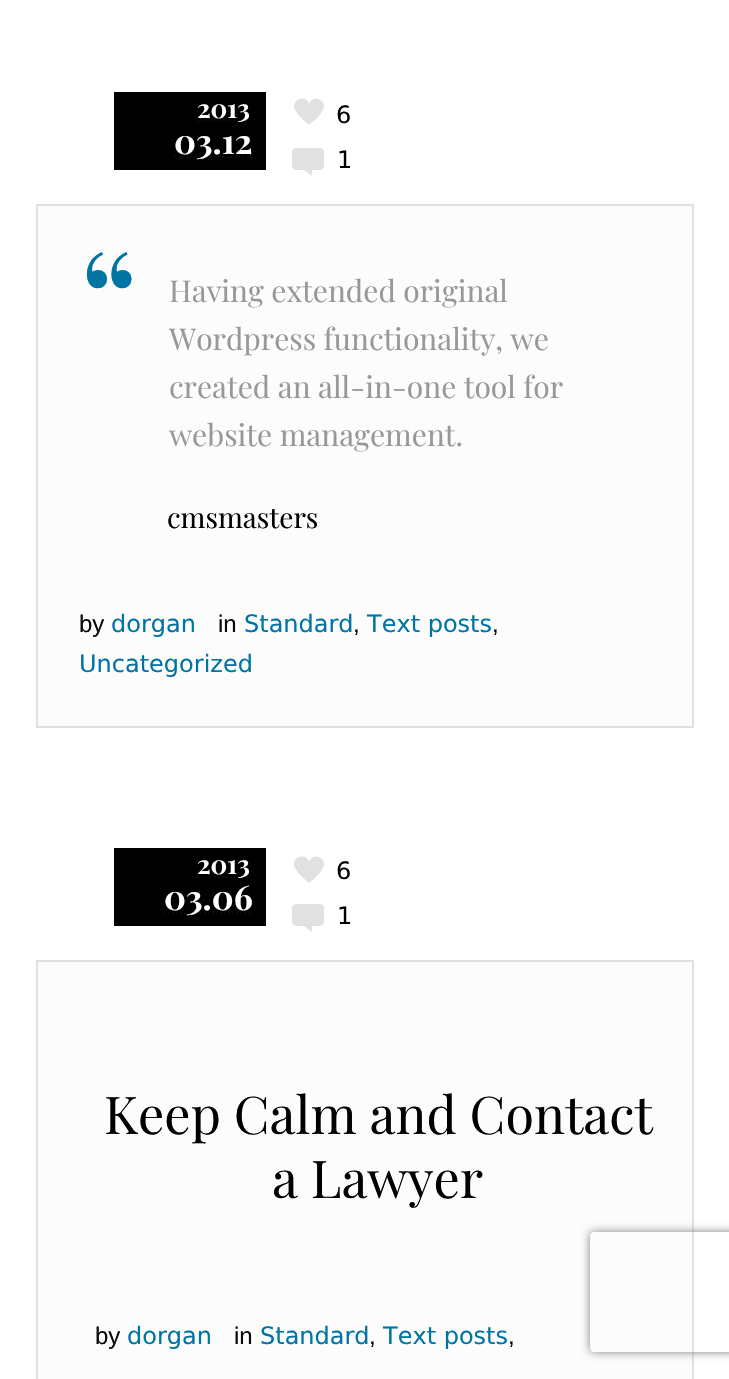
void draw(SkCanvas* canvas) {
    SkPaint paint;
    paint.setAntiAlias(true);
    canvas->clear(0xFFFFFFFF);
    paint.setColor(0xFF000000);
    canvas->drawRect(SkRect::MakeXYWH(114, 92, 152, 78), paint);
    paint.setStyle(SkPaint::kStroke_Style);
    paint.setStrokeWidth(2);
    paint.setColor(0xFF0A0A0A);
    paint.setPathEffect(SkDashPathEffect::Make({{2, 2}}, 0));
    canvas->drawPath(SkPathBuilder().moveTo(197.5f, 121).lineTo(250.5f, 121).detach(), paint);
    paint.setPathEffect(nullptr);
    SkFont font1(fontMgr->matchFamilyStyle("Playfair Display", SkFontStyle::Bold()), 26);
    font1.setSubpixel(true);
    paint.setStyle(SkPaint::kFill_Style);
    paint.setColor(0xFFFFFFFF);
    canvas->drawString("2013", 197, 118, font1, paint);
    paint.setStyle(SkPaint::kStroke_Style);
    paint.setColor(0xFF0A0A0A);
    paint.setPathEffect(SkDashPathEffect::Make({{2, 2}}, 0));
    canvas->drawPath(SkPathBuilder().moveTo(174, 157).lineTo(252.5f, 157).detach(), paint);
    paint.setPathEffect(nullptr);
    SkFont font2(fontMgr->matchFamilyStyle("Playfair Display", SkFontStyle::Bold()), 34);
    font2.setSubpixel(true);
    paint.setStyle(SkPaint::kFill_Style);
    paint.setColor(0xFFFFFFFF);
    canvas->drawString("03.12", 174, 154, font2, paint);
    canvas->drawImageRect(SkImages::DeferredFromEncodedData(SkData::MakeFromFileName("img1.png")), SkRect::MakeXYWH(294, 98, 30, 27), SkSamplingOptions());
    SkFont font3(fontMgr->matchFamilyStyle("DejaVu Sans", SkFontStyle::Normal()), 24);
    font3.setSubpixel(true);
    paint.setColor(0xFF000000);
    canvas->drawString("6", 336, 123, font3, paint);
    canvas->drawImageRect(SkImages::DeferredFromEncodedData(SkData::MakeFromFileName("img2.png")), SkRect::MakeXYWH(292, 148, 32, 28), SkSamplingOptions());
    canvas->drawString("1", 337, 168, font3, paint);
    paint.setColor(0xFFFCFCFC);
    canvas->drawRect(SkRect::MakeXYWH(37, 205, 656, 522), paint);
    paint.setStyle(SkPaint::kStroke_Style);
    paint.setColor(0xFFE0E0E0);
    canvas->drawRect(SkRect::MakeXYWH(37, 205, 656, 522), paint);
    SkFont font4(fontMgr->matchFamilyStyle("Playfair Display", SkFontStyle::Normal()), 144);
    font4.setSubpixel(true);
    paint.setStyle(SkPaint::kFill_Style);
    paint.setColor(0xFF0075A3);
    canvas->drawString("“", 79, 356, font4, paint);
    SkFont font5(fontMgr->matchFamilyStyle("Playfair Display", SkFontStyle::Normal()), 30);
    font5.setSubpixel(true);
    paint.setColor(0xFF989898);
    canvas->drawString("Having extended original", 169, 302, font5, paint);
    canvas->drawString("Wordpress functionality, we", 169, 350, font5, paint);
    canvas->drawString("created an all-in-one tool for", 169, 398, font5, paint);
    canvas->drawString("website management.", 169, 446, font5, paint);
    SkFont font6(fontMgr->matchFamilyStyle("Playfair Display", SkFontStyle::Normal()), 28);
    font6.setSubpixel(true);
    paint.setColor(0xFF000000);
    canvas->drawString("cmsmasters", 167, 528, font6, paint);
    SkFont font7(fontMgr->matchFamilyStyle("Liberation Sans", SkFontStyle::Normal()), 24);
    font7.setSubpixel(true);
    paint.setColor(0xFF0A0A0A);
    canvas->drawString("by", 79, 632, font7, paint);
    paint.setColor(0xFF0075A3);
    canvas->drawString("dorgan", 111, 632, font3, paint);
    paint.setColor(0xFF0A0A0A);
    canvas->drawString("in", 218, 632, font7, paint);
    paint.setColor(0xFF0075A3);
    canvas->drawString("Standard", 244, 632, font3, paint);
    paint.setColor(0xFF0A0A0A);
    canvas->drawString(",", 353, 632, font7, paint);
    paint.setColor(0xFF0075A3);
    canvas->drawString("Text posts", 367, 632, font3, paint);
    paint.setColor(0xFF0A0A0A);
    canvas->drawString(",", 492, 632, font7, paint);
    paint.setColor(0xFF0075A3);
    canvas->drawString("Uncategorized", 79, 672, font3, paint);
    paint.setColor(0xFF000000);
    canvas->drawRect(SkRect::MakeXYWH(114, 848, 152, 78), paint);
    paint.setStyle(SkPaint::kStroke_Style);
    paint.setColor(0xFF0A0A0A);
    paint.setPathEffect(SkDashPathEffect::Make({{2, 2}}, 0));
    canvas->drawPath(SkPathBuilder().moveTo(197.5f, 877).lineTo(250.5f, 877).detach(), paint);
    paint.setPathEffect(nullptr);
    paint.setStyle(SkPaint::kFill_Style);
    paint.setColor(0xFFFFFFFF);
    canvas->drawString("2013", 197, 874, font1, paint);
    paint.setStyle(SkPaint::kStroke_Style);
    paint.setColor(0xFF0A0A0A);
    paint.setPathEffect(SkDashPathEffect::Make({{2, 2}}, 0));
    canvas->drawPath(SkPathBuilder().moveTo(164, 913).lineTo(252.5f, 913).detach(), paint);
    paint.setPathEffect(nullptr);
    paint.setStyle(SkPaint::kFill_Style);
    paint.setColor(0xFFFFFFFF);
    canvas->drawString("03.06", 164, 910, font2, paint);
    canvas->drawImageRect(SkImages::DeferredFromEncodedData(SkData::MakeFromFileName("img1.png")), SkRect::MakeXYWH(294, 856, 30, 27), SkSamplingOptions());
    paint.setColor(0xFF000000);
    canvas->drawString("6", 336, 879, font3, paint);
    canvas->drawImageRect(SkImages::DeferredFromEncodedData(SkData::MakeFromFileName("img2.png")), SkRect::MakeXYWH(292, 904, 32, 28), SkSamplingOptions());
    canvas->drawString("1", 337, 924, font3, paint);
    paint.setColor(0xFFFCFCFC);
    canvas->drawRect(SkRect::MakeXYWH(37, 961, 656, 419), paint);
    paint.setStyle(SkPaint::kStroke_Style);
    paint.setColor(0xFFE0E0E0);
    canvas->drawRect(SkRect::MakeXYWH(37, 961, 656, 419), paint);
    SkFont font8(fontMgr->matchFamilyStyle("Playfair Display", SkFontStyle::Normal()), 52);
    font8.setSubpixel(true);
    paint.setStyle(SkPaint::kFill_Style);
    paint.setColor(0xFF000000);
    canvas->drawString("Keep Calm and Contact", 104, 1134, font8, paint);
    canvas->drawString("a Lawyer", 272, 1198, font8, paint);
    paint.setColor(0xFF0A0A0A);
    canvas->drawString("by", 95, 1344, font7, paint);
    paint.setColor(0xFF0075A3);
    canvas->drawString("dorgan", 127, 1344, font3, paint);
    paint.setColor(0xFF0A0A0A);
    canvas->drawString("in", 234, 1344, font7, paint);
    paint.setColor(0xFF0075A3);
    canvas->drawString("Standard", 260, 1344, font3, paint);
    paint.setColor(0xFF0A0A0A);
    canvas->drawString(",", 369, 1344, font7, paint);
    paint.setColor(0xFF0075A3);
    canvas->drawString("Text posts", 383, 1344, font3, paint);
    paint.setColor(0xFF0A0A0A);
    canvas->drawString(",", 508, 1344, font7, paint);
    canvas->save();
    canvas->clipPath(SkPathBuilder(SkPathFillType::kEvenOdd).moveTo(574, 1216).lineTo(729, 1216).lineTo(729, 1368).lineTo(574, 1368).close().moveTo(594, 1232).lineTo(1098, 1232).cubicTo(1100, 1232, 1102, 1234, 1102, 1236).lineTo(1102, 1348).cubicTo(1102, 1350, 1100, 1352, 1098, 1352).lineTo(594, 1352).cubicTo(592, 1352, 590, 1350, 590, 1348).lineTo(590, 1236).cubicTo(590, 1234, 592, 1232, 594, 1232).close().detach(), true);
    paint.setColor(0xFF808080);
    paint.setMaskFilter(SkMaskFilter::MakeBlur(kNormal_SkBlurStyle, 5));
    canvas->drawRoundRect(SkRect::MakeXYWH(590, 1232, 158, 120), 4, 4, paint);
    paint.setMaskFilter(nullptr);
    canvas->restore();
}
